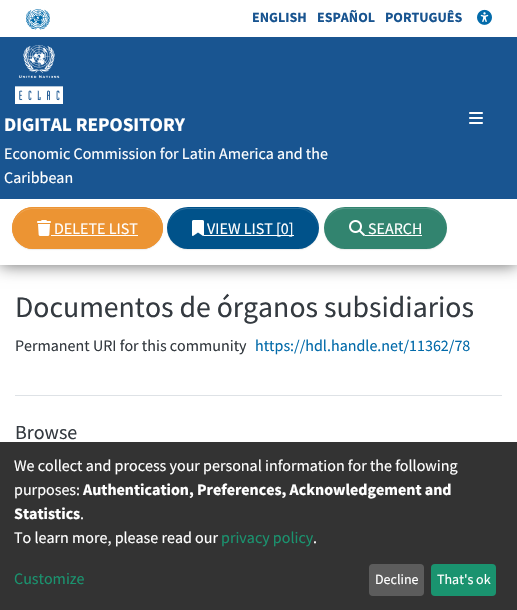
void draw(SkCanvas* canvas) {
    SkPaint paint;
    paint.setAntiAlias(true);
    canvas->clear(0xFFFFFFFF);
    canvas->drawImageRect(SkImages::DeferredFromEncodedData(SkData::MakeFromFileName("img1.png")), SkRect::MakeXYWH(26, 9, 24, 21), SkSamplingOptions());
    SkFont font1(fontMgr->matchFamilyStyle("Source Sans Pro", SkFontStyle::Bold()), 14);
    font1.setSubpixel(true);
    paint.setColor(0xFF185490);
    canvas->drawString("ENGLISH", 252, 22, font1, paint);
    canvas->drawString("ESPAÑOL", 317, 22, font1, paint);
    canvas->drawString("PORTUGUÊS", 385, 22, font1, paint);
    canvas->drawImageRect(SkImages::DeferredFromEncodedData(SkData::MakeFromFileName("img2.png")), SkRect::MakeXYWH(477, 9, 15, 16), SkSamplingOptions());
    paint.setColor(0xFF666666);
    paint.setMaskFilter(SkMaskFilter::MakeBlur(kNormal_SkBlurStyle, 8));
    canvas->drawRect(SkRect::MakeXYWH(0, 199, 517, 66), paint);
    paint.setMaskFilter(nullptr);
    paint.setColor(0xFF195591);
    canvas->drawRect(SkRect::MakeXYWH(0, 37, 517, 162), paint);
    canvas->drawImageRect(SkImages::DeferredFromEncodedData(SkData::MakeFromFileName("img3.png")), SkRect::MakeXYWH(15, 45, 48, 59), SkSamplingOptions());
    SkFont font2(fontMgr->matchFamilyStyle("Source Sans Pro", SkFontStyle::Bold()), 19.25f);
    font2.setSubpixel(true);
    paint.setColor(0xFFFFFFFF);
    canvas->drawString("DIGITAL REPOSITORY", 4, 131, font2, paint);
    SkFont font3(fontMgr->matchFamilyStyle("Source Sans Pro", SkFontStyle::Normal()), 16);
    font3.setSubpixel(true);
    canvas->drawString("Economic Commission for Latin America and the", 4, 159, font3, paint);
    canvas->drawString("Caribbean", 4, 183, font3, paint);
    canvas->drawImageRect(SkImages::DeferredFromEncodedData(SkData::MakeFromFileName("img4.png")), SkRect::MakeXYWH(469, 112, 14, 12), SkSamplingOptions());
    canvas->drawRect(SkRect::MakeXYWH(0, 199, 517, 66), paint);
    paint.setColor(0x12000000);
    paint.setMaskFilter(SkMaskFilter::MakeBlur(kNormal_SkBlurStyle, 0.5f));
    canvas->drawRoundRect(SkRect::MakeXYWH(12, 208, 151, 42), 21, 21, paint);
    paint.setMaskFilter(nullptr);
    paint.setColor(0xFFEC9433);
    canvas->drawRoundRect(SkRect::MakeXYWH(12, 207, 151, 42), 21, 21, paint);
    paint.setColor(0xFFEFA452);
    canvas->drawPath(SkPathBuilder().moveTo(33, 209).lineTo(142, 209).cubicTo(153, 209, 162, 218, 162, 229).lineTo(162, 228).cubicTo(162, 217, 153, 208, 142, 208).lineTo(33, 208).cubicTo(22, 208, 13, 217, 13, 228).lineTo(13, 229).cubicTo(13, 218, 22, 209, 33, 209).close().detach(), paint);
    paint.setStyle(SkPaint::kStroke_Style);
    paint.setStrokeWidth(1);
    paint.setColor(0xFFEC9433);
    canvas->drawRoundRect(SkRect::MakeXYWH(12.5f, 207.5f, 150, 41), 20.5f, 20.5f, paint);
    canvas->drawImageRect(SkImages::DeferredFromEncodedData(SkData::MakeFromFileName("img5.png")), SkRect::MakeXYWH(37, 220, 14, 16), SkSamplingOptions());
    paint.setStyle(SkPaint::kFill_Style);
    paint.setColor(0xFFFFFFFF);
    canvas->drawString("DELETE LIST", 54, 234, font3, paint);
    canvas->drawRect(SkRect::MakeXYWH(51, 235, 87, 1), paint);
    paint.setColor(0x12000000);
    paint.setMaskFilter(SkMaskFilter::MakeBlur(kNormal_SkBlurStyle, 0.5f));
    canvas->drawRoundRect(SkRect::MakeXYWH(167, 208, 152, 42), 21, 21, paint);
    paint.setMaskFilter(nullptr);
    paint.setColor(0xFF00528A);
    canvas->drawRoundRect(SkRect::MakeXYWH(167, 207, 152, 42), 21, 21, paint);
    paint.setColor(0xFF266C9C);
    canvas->drawPath(SkPathBuilder().moveTo(188, 209).lineTo(298, 209).cubicTo(309, 209, 318, 218, 318, 229).lineTo(318, 228).cubicTo(318, 217, 309, 208, 298, 208).lineTo(188, 208).cubicTo(177, 208, 168, 217, 168, 228).lineTo(168, 229).cubicTo(168, 218, 177, 209, 188, 209).close().detach(), paint);
    canvas->drawImageRect(SkImages::DeferredFromEncodedData(SkData::MakeFromFileName("img6.png")), SkRect::MakeXYWH(192, 220, 12, 16), SkSamplingOptions());
    paint.setColor(0xFFFFFFFF);
    canvas->drawRect(SkRect::MakeXYWH(204, 235, 90, 1), paint);
    canvas->drawString("VIEW LIST [0]", 207, 234, font3, paint);
    paint.setColor(0x12000000);
    paint.setMaskFilter(SkMaskFilter::MakeBlur(kNormal_SkBlurStyle, 0.5f));
    canvas->drawRoundRect(SkRect::MakeXYWH(324, 208, 123, 42), 21, 21, paint);
    paint.setMaskFilter(nullptr);
    paint.setColor(0xFF32846F);
    canvas->drawRoundRect(SkRect::MakeXYWH(324, 207, 123, 42), 21, 21, paint);
    paint.setColor(0xFF519685);
    canvas->drawPath(SkPathBuilder().moveTo(345, 209).lineTo(426, 209).cubicTo(437, 209, 446, 218, 446, 229).cubicTo(446, 219, 439, 210, 430, 208).lineTo(412, 208).lineTo(341, 208).cubicTo(332, 210, 325, 219, 325, 229).cubicTo(325, 218, 334, 209, 345, 209).close().detach(), paint);
    canvas->drawImageRect(SkImages::DeferredFromEncodedData(SkData::MakeFromFileName("img7.png")), SkRect::MakeXYWH(349, 220, 16, 16), SkSamplingOptions());
    paint.setColor(0xFFFFFFFF);
    canvas->drawString("SEARCH", 368, 234, font3, paint);
    canvas->drawRect(SkRect::MakeXYWH(365, 235, 57, 1), paint);
    paint.setColor(0xFFDEE2E6);
    canvas->drawRect(SkRect::MakeXYWH(15, 395, 487, 1), paint);
    SkFont font4(fontMgr->matchFamilyStyle("Source Sans Pro", SkFontStyle::Normal()), 29.75f);
    font4.setSubpixel(true);
    paint.setColor(0xFF343A40);
    canvas->drawString("Documentos de órganos subsidiarios", 15, 317, font4, paint);
    canvas->drawString("Permanent URI for this community", 15, 351, font3, paint);
    paint.setColor(0xFF036BAA);
    canvas->drawString("https://hdl.handle.net/11362/78", 255, 351, font3, paint);
    SkFont font5(fontMgr->matchFamilyStyle("Source Sans Pro", SkFontStyle::Normal()), 20);
    font5.setSubpixel(true);
    paint.setColor(0xFF343A40);
    canvas->drawString("Browse", 15, 439, font5, paint);
    paint.setColor(0xFF333333);
    canvas->drawRect(SkRect::MakeXYWH(0, 442, 517, 168), paint);
    paint.setColor(0xFFFFFFFF);
    canvas->drawString("We collect and process your personal information for the following", 14, 471, font3, paint);
    canvas->drawString("purposes:", 14, 495, font3, paint);
    SkFont font6(fontMgr->matchFamilyStyle("Source Sans Pro", SkFontStyle::Bold()), 16);
    font6.setSubpixel(true);
    canvas->drawString("Authentication, Preferences, Acknowledgement and", 83, 495, font6, paint);
    canvas->drawString("Statistics", 14, 519, font6, paint);
    canvas->drawString(".", 80, 519, font3, paint);
    canvas->drawString("To learn more, please read our", 14, 543, font3, paint);
    paint.setColor(0xFF1A936F);
    canvas->drawString("privacy policy", 221, 543, font3, paint);
    paint.setColor(0xFFFFFFFF);
    canvas->drawString(".", 313, 543, font3, paint);
    paint.setColor(0xFF1A936F);
    canvas->drawString("Customize", 14, 584, font3, paint);
    paint.setColor(0xFF5C5C5C);
    canvas->drawRoundRect(SkRect::MakeXYWH(369, 564, 55, 32), 4, 4, paint);
    SkFont font7(fontMgr->matchFamilyStyle("Source Sans Pro", SkFontStyle::Normal()), 14);
    font7.setSubpixel(true);
    paint.setColor(0xFFFFFFFF);
    canvas->drawString("Decline", 375, 584, font7, paint);
    paint.setColor(0xFF1A936F);
    canvas->drawRoundRect(SkRect::MakeXYWH(431, 564, 65, 32), 4, 4, paint);
    paint.setColor(0xFFFFFFFF);
    canvas->drawString("That's ok", 437, 584, font7, paint);
}
